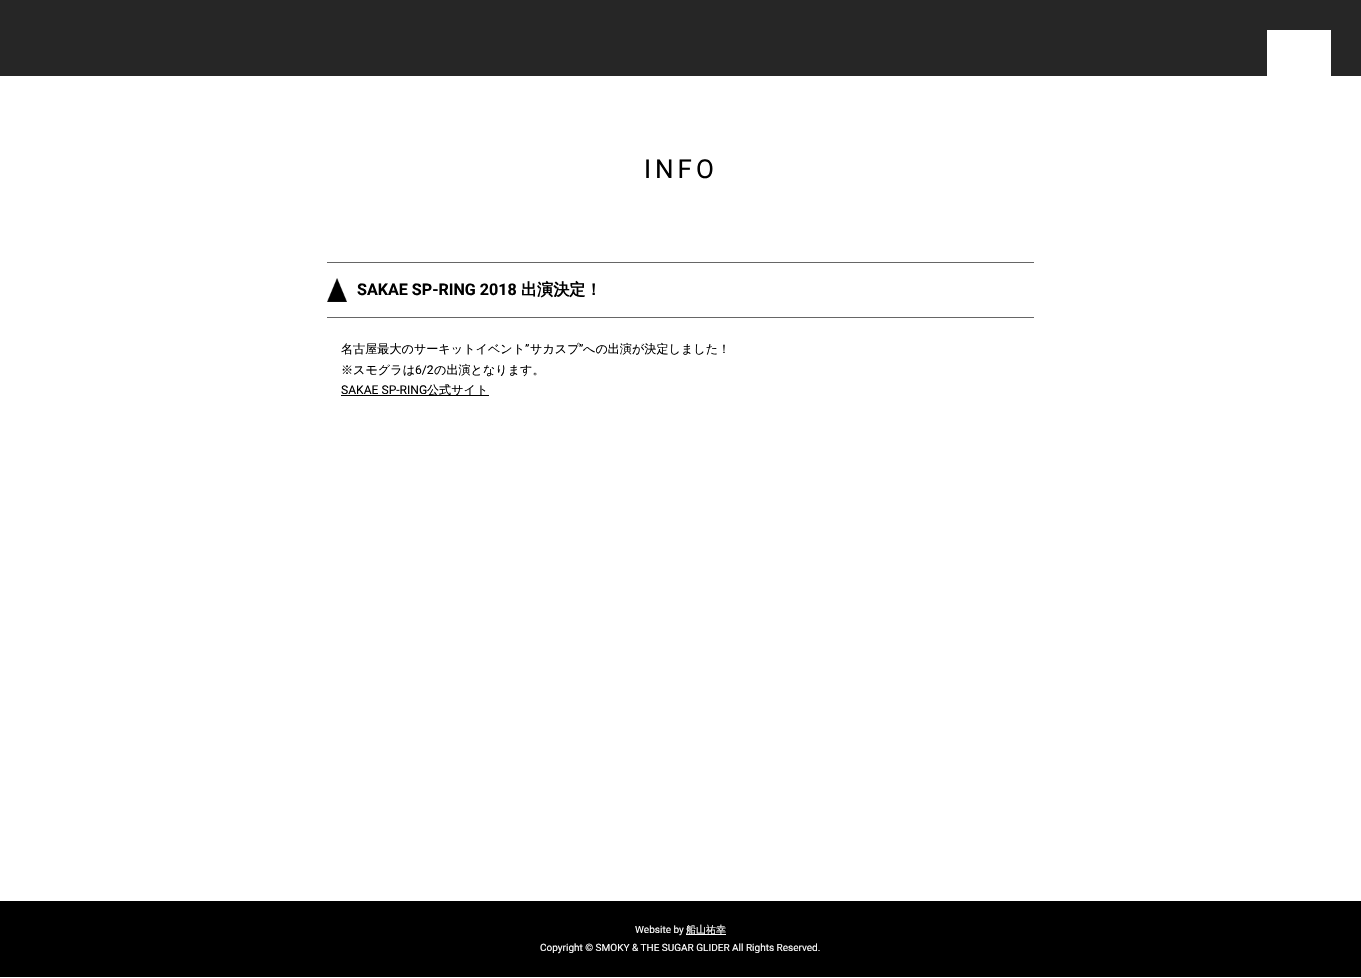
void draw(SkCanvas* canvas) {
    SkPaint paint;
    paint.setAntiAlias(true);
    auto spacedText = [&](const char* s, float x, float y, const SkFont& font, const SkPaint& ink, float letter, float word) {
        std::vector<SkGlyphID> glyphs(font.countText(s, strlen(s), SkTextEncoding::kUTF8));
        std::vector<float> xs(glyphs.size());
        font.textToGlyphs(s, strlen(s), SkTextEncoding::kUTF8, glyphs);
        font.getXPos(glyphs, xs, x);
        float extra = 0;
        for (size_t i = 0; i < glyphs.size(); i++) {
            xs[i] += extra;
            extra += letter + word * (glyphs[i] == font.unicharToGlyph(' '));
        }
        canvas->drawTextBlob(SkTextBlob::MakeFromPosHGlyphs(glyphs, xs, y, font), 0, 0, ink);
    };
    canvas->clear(0xFFFFFFFF);
    paint.setColor(0xFF262626);
    canvas->drawRect(SkRect::MakeXYWH(0, 0, 1361, 76), paint);
    paint.setColor(0xFFFFFFFF);
    canvas->drawRect(SkRect::MakeXYWH(1267, 30, 64, 46), paint);
    SkFont font1(fontMgr->matchFamilyStyle("Roboto", SkFontStyle::Normal()), 26);
    font1.setSubpixel(true);
    paint.setColor(0xFF000000);
    spacedText("INFO", 644, 178, font1, paint, 4, 0);
    canvas->drawImageRect(SkImages::DeferredFromEncodedData(SkData::MakeFromFileName("img1.png")), SkRect::MakeXYWH(327, 278, 20, 24), SkSamplingOptions());
    paint.setColor(0xFF666666);
    canvas->drawRect(SkRect::MakeXYWH(327, 262, 707, 1), paint);
    canvas->drawRect(SkRect::MakeXYWH(327, 317, 707, 1), paint);
    SkFont font2(fontMgr->matchFamilyStyle("Roboto", SkFontStyle::Bold()), 16.1f);
    font2.setSubpixel(true);
    paint.setColor(0xFF000000);
    canvas->drawString("SAKAE SP-RING 2018", 357, 295, font2, paint);
    SkFont font3(fontMgr->matchFamilyStyle("WenQuanYi Zen Hei", SkFontStyle::Bold()), 16.1f);
    font3.setSubpixel(true);
    canvas->drawString("出演決定！", 521, 295, font3, paint);
    SkFont font4(fontMgr->matchFamilyStyle("WenQuanYi Zen Hei", SkFontStyle(500, SkFontStyle::kNormal_Width, SkFontStyle::kUpright_Slant)), 12.1f);
    font4.setSubpixel(true);
    canvas->drawString("名古屋最大のサーキットイベント", 341, 353, font4, paint);
    SkFont font5(fontMgr->matchFamilyStyle("Roboto", SkFontStyle::Normal()), 12.1f);
    font5.setSubpixel(true);
    canvas->drawString("”", 525, 353, font5, paint);
    canvas->drawString("サカスプ", 530, 353, font4, paint);
    canvas->drawString("”", 579, 353, font5, paint);
    canvas->drawString("への出演が決定しました！", 583, 353, font4, paint);
    canvas->drawString("※スモグラは", 341, 374, font4, paint);
    canvas->drawString("6/2", 415, 374, font5, paint);
    canvas->drawString("の出演となります。", 434, 374, font4, paint);
    canvas->drawString("SAKAE SP-RING", 341, 394, font5, paint);
    canvas->drawRect(SkRect::MakeXYWH(341, 395, 148, 1), paint);
    canvas->drawString("公式サイト", 427, 394, font4, paint);
    canvas->drawRect(SkRect::MakeXYWH(0, 901, 1361, 76), paint);
    SkFont font6(fontMgr->matchFamilyStyle("Roboto", SkFontStyle::Normal()), 10);
    font6.setSubpixel(true);
    paint.setColor(0xFFFFFFFF);
    canvas->drawString("Website by", 635, 933, font6, paint);
    canvas->drawRect(SkRect::MakeXYWH(686, 934, 40, 1), paint);
    SkFont font7(fontMgr->matchFamilyStyle("WenQuanYi Zen Hei", SkFontStyle(500, SkFontStyle::kNormal_Width, SkFontStyle::kUpright_Slant)), 10);
    font7.setSubpixel(true);
    canvas->drawString("船山祐幸", 686, 933, font7, paint);
    canvas->drawString("Copyright © SMOKY & THE SUGAR GLIDER All Rights Reserved.", 540, 951, font6, paint);
}
